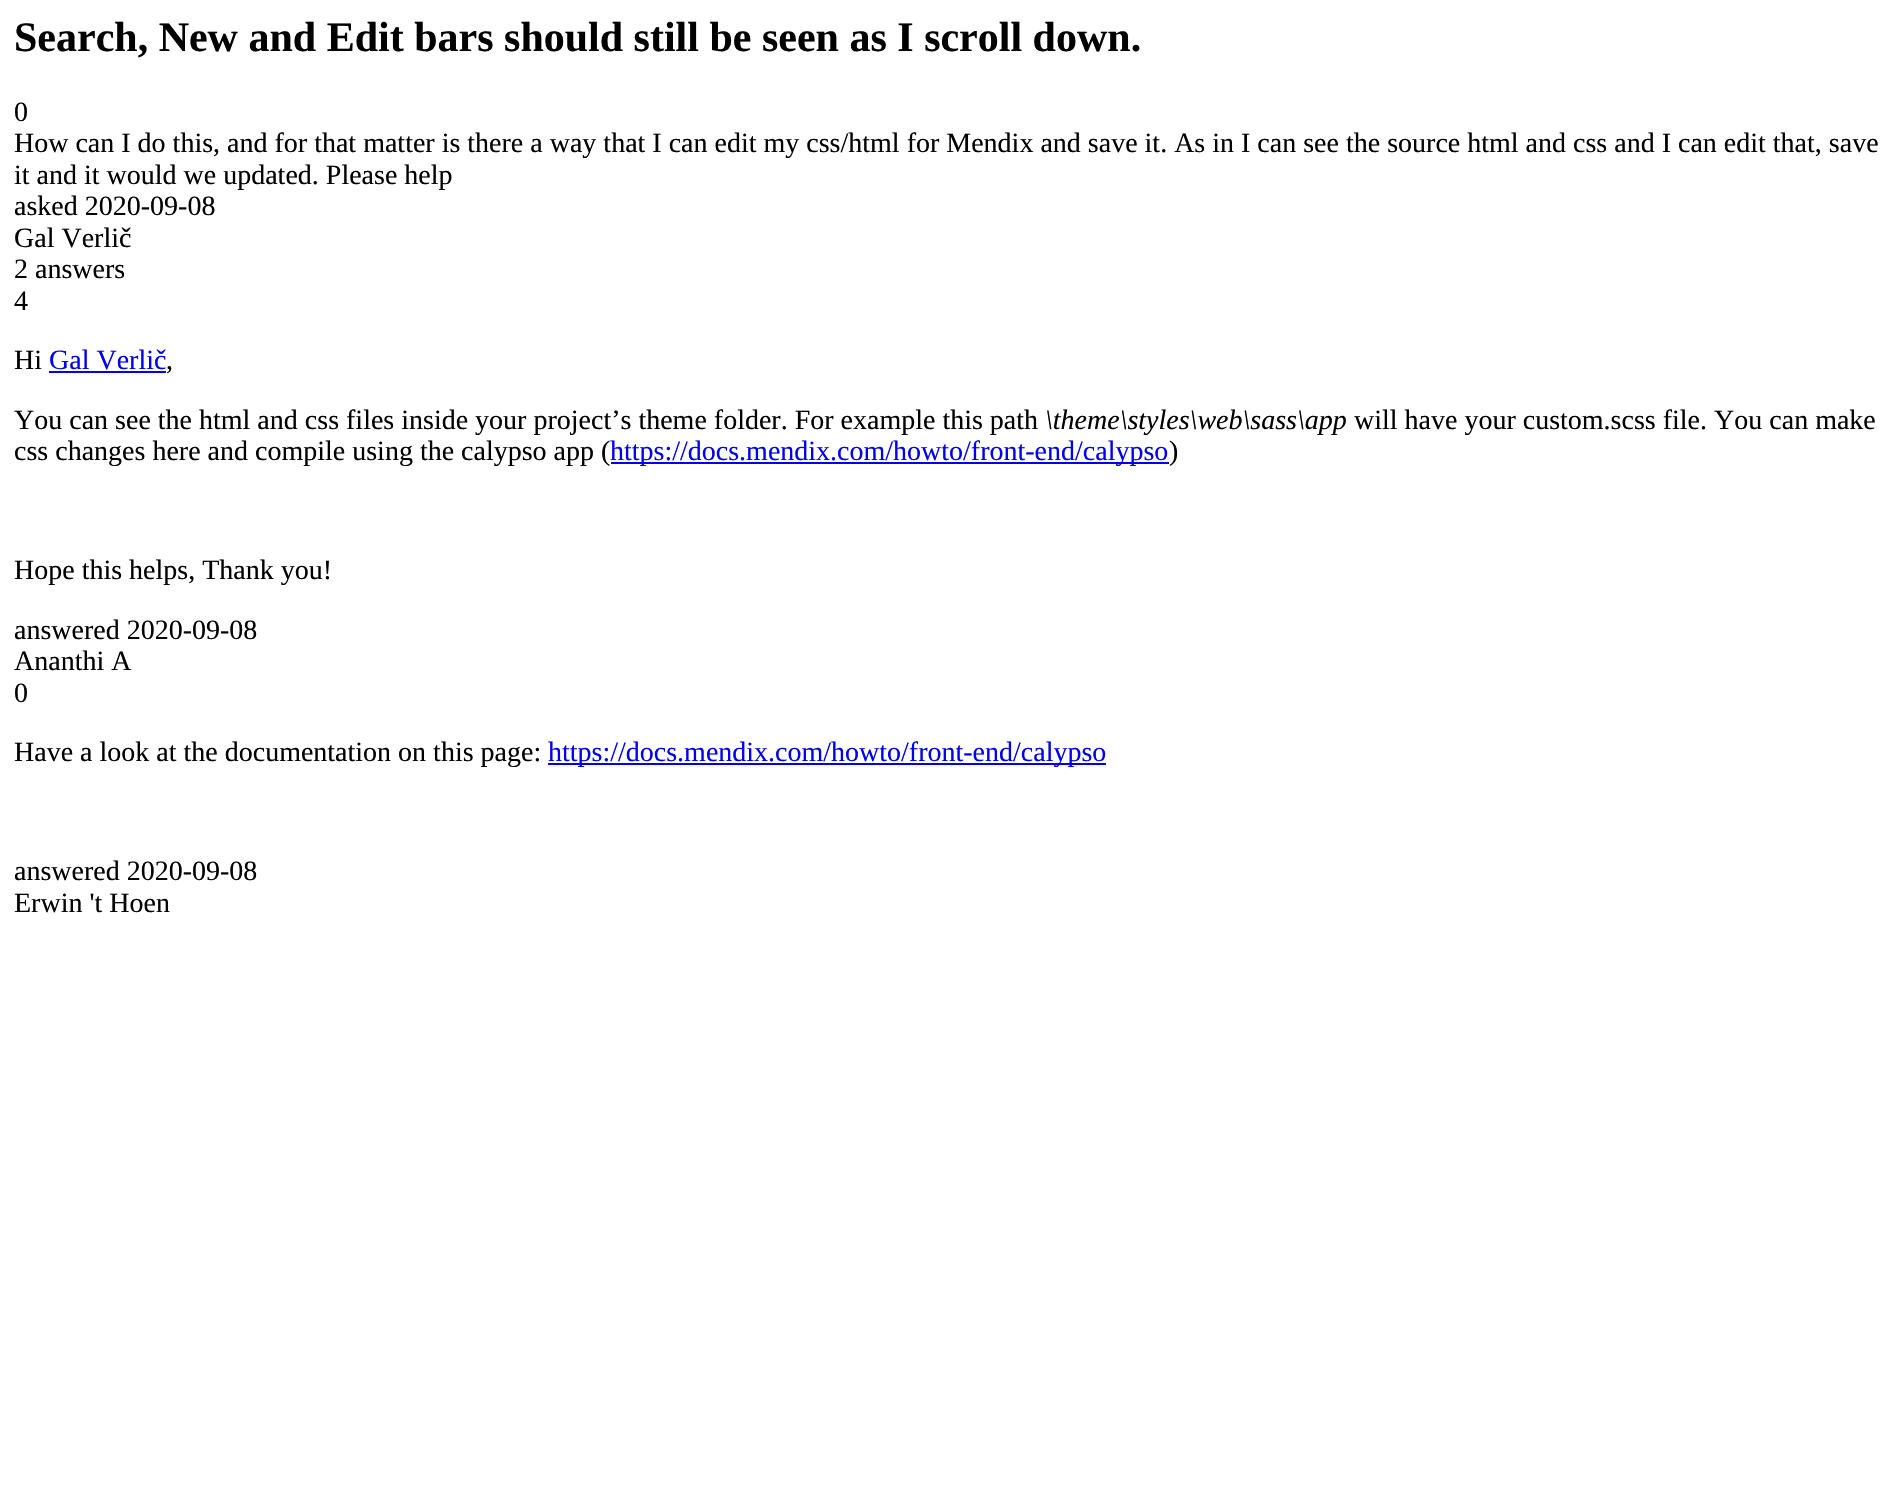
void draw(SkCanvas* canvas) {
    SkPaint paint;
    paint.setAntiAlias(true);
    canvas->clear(0xFFFFFFFF);
    SkFont font1(fontMgr->matchFamilyStyle("Liberation Serif", SkFontStyle::Bold()), 42);
    font1.setSubpixel(true);
    paint.setColor(0xFF000000);
    canvas->drawString("Search, New and Edit bars should still be seen as I scroll down.", 14, 51, font1, paint);
    SkFont font2(fontMgr->matchFamilyStyle("Liberation Serif", SkFontStyle::Normal()), 28);
    font2.setSubpixel(true);
    canvas->drawString("0", 14, 121, font2, paint);
    canvas->drawString("How can I do this, and for that matter is there a way that I can edit my css/html for Mendix and save it. As in I can see the source html and css and I can edit that, save", 14, 152, font2, paint);
    canvas->drawString("it and it would we updated. Please help", 14, 184, font2, paint);
    canvas->drawString("asked 2020-09-08", 14, 215, font2, paint);
    canvas->drawString("Gal Verlič", 14, 247, font2, paint);
    canvas->drawString("2 answers", 14, 278, font2, paint);
    canvas->drawString("4", 14, 310, font2, paint);
    canvas->drawString("Hi", 14, 369, font2, paint);
    paint.setColor(0xFF0000EE);
    canvas->drawString("Gal Verlič", 49, 369, font2, paint);
    canvas->drawRect(SkRect::MakeXYWH(49, 371, 117, 2), paint);
    paint.setColor(0xFF000000);
    canvas->drawString(",", 166, 369, font2, paint);
    canvas->drawString("You can see the html and css files inside your project’s theme folder. For example this path", 14, 429, font2, paint);
    SkFont font3(fontMgr->matchFamilyStyle("Liberation Serif", SkFontStyle::Italic()), 28);
    font3.setSubpixel(true);
    canvas->drawString("\\theme\\styles\\web\\sass\\app", 1045, 429, font3, paint);
    canvas->drawString("will have your custom.scss file. You can make", 1354, 429, font2, paint);
    canvas->drawString("css changes here and compile using the calypso app (", 14, 460, font2, paint);
    paint.setColor(0xFF0000EE);
    canvas->drawRect(SkRect::MakeXYWH(611, 462, 558, 2), paint);
    canvas->drawString("https://docs.mendix.com/howto/front-end/calypso", 610, 460, font2, paint);
    paint.setColor(0xFF000000);
    canvas->drawString(")", 1169, 460, font2, paint);
    canvas->drawString("Hope this helps, Thank you!", 14, 579, font2, paint);
    canvas->drawString("answered 2020-09-08", 14, 639, font2, paint);
    canvas->drawString("Ananthi A", 14, 670, font2, paint);
    canvas->drawString("0", 14, 702, font2, paint);
    canvas->drawString("Have a look at the documentation on this page:", 14, 761, font2, paint);
    paint.setColor(0xFF0000EE);
    canvas->drawRect(SkRect::MakeXYWH(548, 763, 558, 2), paint);
    canvas->drawString("https://docs.mendix.com/howto/front-end/calypso", 548, 761, font2, paint);
    paint.setColor(0xFF000000);
    canvas->drawString("answered 2020-09-08", 14, 880, font2, paint);
    canvas->drawString("Erwin 't Hoen", 14, 912, font2, paint);
}
